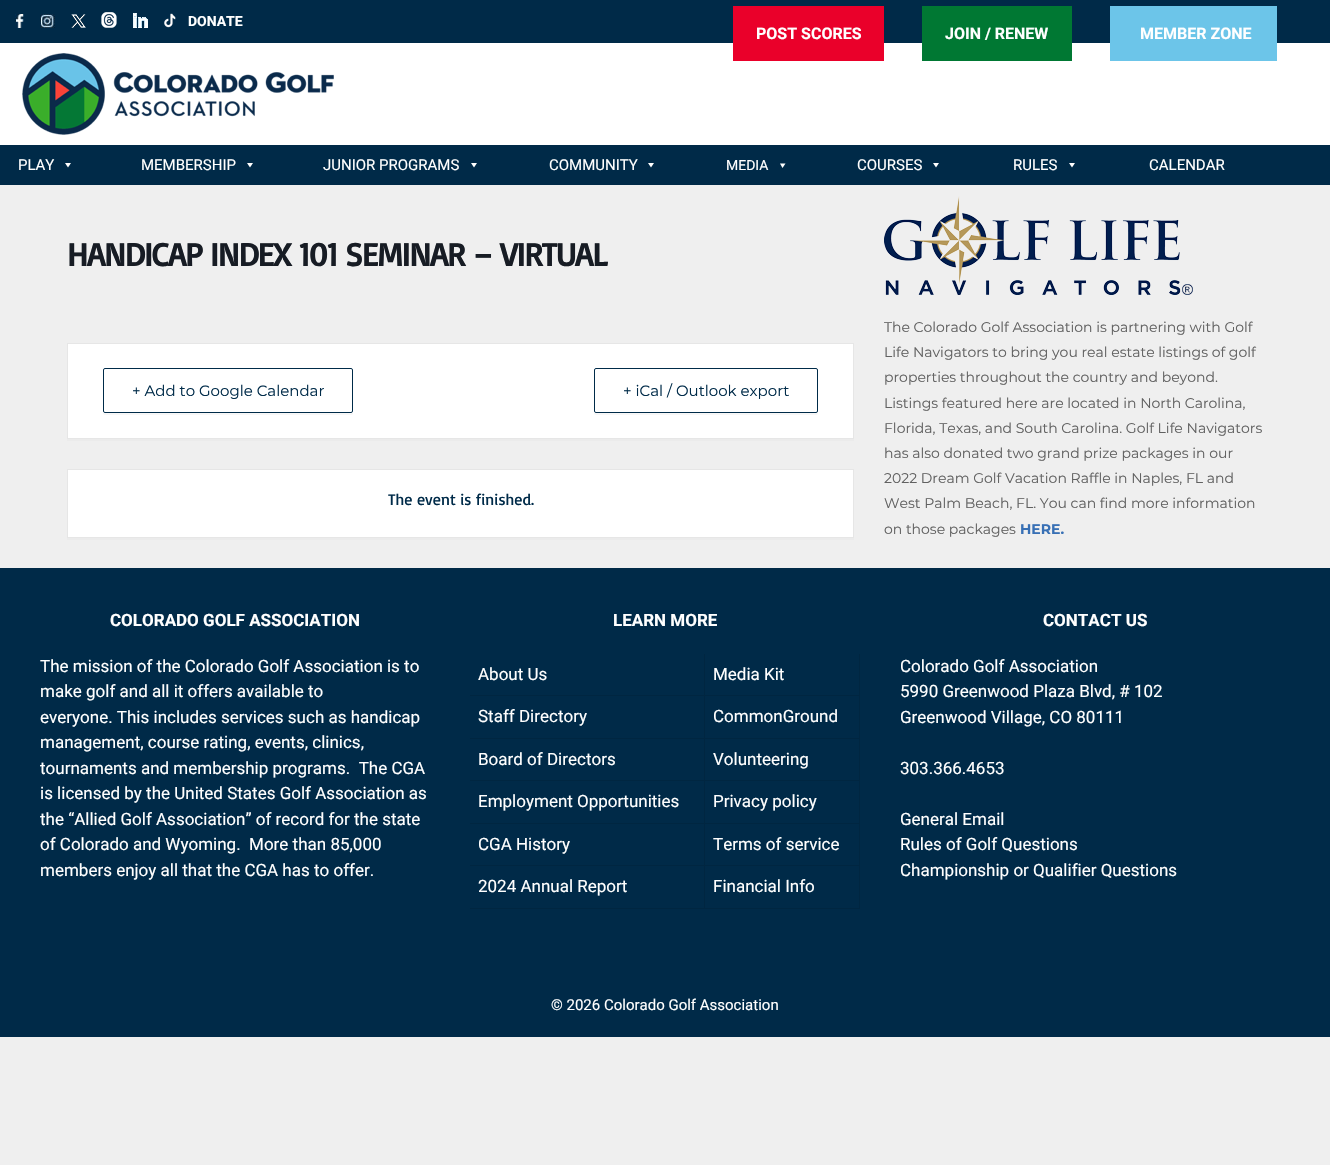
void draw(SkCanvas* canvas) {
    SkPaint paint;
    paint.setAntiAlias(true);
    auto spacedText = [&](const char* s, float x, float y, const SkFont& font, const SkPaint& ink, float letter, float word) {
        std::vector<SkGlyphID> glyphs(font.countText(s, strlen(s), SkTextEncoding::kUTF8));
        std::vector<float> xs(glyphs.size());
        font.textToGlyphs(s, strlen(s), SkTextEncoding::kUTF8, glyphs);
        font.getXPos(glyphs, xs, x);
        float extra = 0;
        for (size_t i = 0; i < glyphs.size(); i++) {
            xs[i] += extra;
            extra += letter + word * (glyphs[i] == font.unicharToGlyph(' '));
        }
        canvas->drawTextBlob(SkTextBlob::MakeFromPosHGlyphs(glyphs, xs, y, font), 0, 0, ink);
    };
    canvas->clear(0xFFEFEFEF);
    paint.setColor(0xFF002A48);
    canvas->drawRect(SkRect::MakeXYWH(0, 0, 1330, 43), paint);
    canvas->drawImageRect(SkImages::DeferredFromEncodedData(SkData::MakeFromFileName("img1.png")), SkRect::MakeXYWH(15, 14, 9, 14), SkSamplingOptions());
    canvas->drawImageRect(SkImages::DeferredFromEncodedData(SkData::MakeFromFileName("img2.png")), SkRect::MakeXYWH(40, 14, 15, 14), SkSamplingOptions());
    canvas->drawImageRect(SkImages::DeferredFromEncodedData(SkData::MakeFromFileName("img3.png")), SkRect::MakeXYWH(71, 14, 15, 14), SkSamplingOptions());
    canvas->drawImageRect(SkImages::DeferredFromEncodedData(SkData::MakeFromFileName("img4.png")), SkRect::MakeXYWH(101, 12, 16, 16), SkSamplingOptions());
    canvas->drawImageRect(SkImages::DeferredFromEncodedData(SkData::MakeFromFileName("img5.png")), SkRect::MakeXYWH(133, 13, 15, 15), SkSamplingOptions());
    canvas->drawImageRect(SkImages::DeferredFromEncodedData(SkData::MakeFromFileName("img6.png")), SkRect::MakeXYWH(164, 13, 12, 15), SkSamplingOptions());
    SkFont font1(fontMgr->matchFamilyStyle("Roboto", SkFontStyle::Bold()), 14);
    font1.setSubpixel(true);
    paint.setColor(0xFFFFFFFF);
    canvas->drawString("DONATE", 188, 26, font1, paint);
    canvas->drawRect(SkRect::MakeXYWH(0, 43, 1330, 102), paint);
    paint.setColor(0xFFEA002A);
    canvas->drawRect(SkRect::MakeXYWH(733, 6, 151, 55), paint);
    SkFont font2(fontMgr->matchFamilyStyle("Roboto", SkFontStyle::Bold()), 16);
    font2.setSubpixel(true);
    paint.setColor(0xFFFFFFFF);
    canvas->drawString("POST SCORES", 756, 39, font2, paint);
    paint.setColor(0xFF007833);
    canvas->drawRect(SkRect::MakeXYWH(922, 6, 150, 55), paint);
    paint.setColor(0xFFFFFFFF);
    canvas->drawString("JOIN / RENEW", 945, 39, font2, paint);
    paint.setColor(0xFF6CC5E9);
    canvas->drawRect(SkRect::MakeXYWH(1110, 6, 167, 55), paint);
    paint.setColor(0xFFFFFFFF);
    canvas->drawString("MEMBER ZONE", 1140, 39, font2, paint);
    canvas->drawImageRect(SkImages::DeferredFromEncodedData(SkData::MakeFromFileName("img7.png")), SkRect::MakeXYWH(22, 53, 312, 82), SkSamplingOptions());
    paint.setColor(0xFF002A48);
    canvas->drawRect(SkRect::MakeXYWH(0, 145, 1330, 40), paint);
    SkFont font3(fontMgr->matchFamilyStyle("Roboto", SkFontStyle::Normal()), 15);
    font3.setSubpixel(true);
    paint.setColor(0xFFFFFFFF);
    canvas->drawString("PLAY", 18, 170, font3, paint);
    canvas->drawPath(SkPathBuilder().moveTo(71, 163).lineTo(68, 167.5f).lineTo(65, 163).close().detach(), paint);
    canvas->drawString("MEMBERSHIP", 141, 170, font3, paint);
    canvas->drawPath(SkPathBuilder().moveTo(253, 163).lineTo(250, 167.5f).lineTo(247, 163).close().detach(), paint);
    canvas->drawString("JUNIOR PROGRAMS", 323, 170, font3, paint);
    canvas->drawPath(SkPathBuilder().moveTo(477, 163).lineTo(474, 167.5f).lineTo(471, 163).close().detach(), paint);
    canvas->drawString("COMMUNITY", 549, 170, font3, paint);
    canvas->drawPath(SkPathBuilder().moveTo(654, 163).lineTo(651, 167.5f).lineTo(648, 163).close().detach(), paint);
    SkFont font4(fontMgr->matchFamilyStyle("Roboto", SkFontStyle::Normal()), 14);
    font4.setSubpixel(true);
    canvas->drawString("MEDIA", 726, 170, font4, paint);
    canvas->drawPath(SkPathBuilder().moveTo(785.5f, 163.5f).lineTo(782.5f, 168).lineTo(780, 163.5f).close().detach(), paint);
    canvas->drawString("COURSES", 857, 170, font3, paint);
    canvas->drawPath(SkPathBuilder().moveTo(939, 163).lineTo(936, 167.5f).lineTo(933, 163).close().detach(), paint);
    canvas->drawString("RULES", 1013, 170, font3, paint);
    canvas->drawPath(SkPathBuilder().moveTo(1075, 163).lineTo(1072, 167.5f).lineTo(1069, 163).close().detach(), paint);
    canvas->drawString("CALENDAR", 1149, 170, font3, paint);
    SkFont font5(fontMgr->matchFamilyStyle("Basic", SkFontStyle::Bold()), 33);
    font5.setSubpixel(true);
    paint.setColor(0xFF171C24);
    spacedText("HANDICAP INDEX 101 SEMINAR – VIRTUAL", 67, 266, font5, paint, -1, 0);
    paint.setColor(0xFFEBEBEB);
    canvas->drawRect(SkRect::MakeXYWH(67, 439, 787, 2), paint);
    paint.setColor(0xFFFFFFFF);
    canvas->drawRect(SkRect::MakeXYWH(67.5f, 343.5f, 786, 95), paint);
    paint.setStyle(SkPaint::kStroke_Style);
    paint.setStrokeWidth(1);
    paint.setColor(0xFFE6E6E6);
    canvas->drawRect(SkRect::MakeXYWH(67.5f, 343.5f, 786, 95), paint);
    paint.setStyle(SkPaint::kFill_Style);
    paint.setColor(0xFFF7F7F7);
    canvas->drawPath(SkPathBuilder().moveTo(103, 411).cubicTo(103, 413, 103, 415, 105, 415).lineTo(351, 415).cubicTo(353, 415, 353, 413, 353, 411).cubicTo(353, 412, 352, 413, 351, 413).lineTo(105, 413).cubicTo(104, 413, 103, 412, 103, 411).close().detach(), paint);
    paint.setStyle(SkPaint::kStroke_Style);
    paint.setColor(0xFF002B49);
    canvas->drawRoundRect(SkRect::MakeXYWH(103.5f, 368.5f, 249, 44), 1.5f, 1.5f, paint);
    SkFont font6(fontMgr->matchFamilyStyle("Montserrat", SkFontStyle::Normal()), 15);
    font6.setSubpixel(true);
    paint.setStyle(SkPaint::kFill_Style);
    canvas->drawString("+ Add to Google Calendar", 132, 396, font6, paint);
    paint.setColor(0xFFF7F7F7);
    canvas->drawPath(SkPathBuilder().moveTo(594, 411).lineTo(594, 413).cubicTo(594, 414, 595, 415, 596, 415).lineTo(816, 415).cubicTo(817, 415, 818, 414, 818, 413).lineTo(818, 411).cubicTo(818, 412, 817, 413, 816, 413).lineTo(596, 413).cubicTo(595, 413, 594, 412, 594, 411).close().detach(), paint);
    paint.setStyle(SkPaint::kStroke_Style);
    paint.setColor(0xFF002B49);
    canvas->drawRoundRect(SkRect::MakeXYWH(594.5f, 368.5f, 223, 44), 1.5f, 1.5f, paint);
    paint.setStyle(SkPaint::kFill_Style);
    canvas->drawString("+ iCal / Outlook export", 623, 396, font6, paint);
    paint.setColor(0xFFEBEBEB);
    canvas->drawRect(SkRect::MakeXYWH(67, 538, 787, 2), paint);
    paint.setColor(0xFFFFFFFF);
    canvas->drawRect(SkRect::MakeXYWH(67.5f, 469.5f, 786, 68), paint);
    paint.setStyle(SkPaint::kStroke_Style);
    paint.setColor(0xFFE6E6E6);
    canvas->drawRect(SkRect::MakeXYWH(67.5f, 469.5f, 786, 68), paint);
    SkFont font7(fontMgr->matchFamilyStyle("Basic", SkFontStyle::Normal()), 16);
    font7.setSubpixel(true);
    paint.setStyle(SkPaint::kFill_Style);
    paint.setColor(0xFF002B49);
    canvas->drawString("The event is finished.", 388, 505, font7, paint);
    canvas->drawImageRect(SkImages::DeferredFromEncodedData(SkData::MakeFromFileName("img8.png")), SkRect::MakeXYWH(884, 196, 309, 99), SkSamplingOptions());
    SkFont font8(fontMgr->matchFamilyStyle("Montserrat", SkFontStyle::Normal()), 14);
    font8.setSubpixel(true);
    paint.setColor(0xFF616161);
    canvas->drawString("The Colorado Golf Association is partnering with Golf", 884, 332, font8, paint);
    canvas->drawString("Life Navigators to bring you real estate listings of golf", 884, 357, font8, paint);
    canvas->drawString("properties throughout the country and beyond.", 884, 382, font8, paint);
    canvas->drawString("Listings featured here are located in North Carolina,", 884, 408, font8, paint);
    canvas->drawString("Florida, Texas, and South Carolina. Golf Life Navigators", 884, 433, font8, paint);
    canvas->drawString("has also donated two grand prize packages in our", 884, 458, font8, paint);
    canvas->drawString("2022 Dream Golf Vacation Raffle in Naples, FL and", 884, 483, font8, paint);
    canvas->drawString("West Palm Beach, FL. You can find more information", 884, 508, font8, paint);
    canvas->drawString("on those packages", 884, 534, font8, paint);
    SkFont font9(fontMgr->matchFamilyStyle("Montserrat", SkFontStyle::Bold()), 14);
    font9.setSubpixel(true);
    paint.setColor(0xFF3870B5);
    canvas->drawString("HERE.", 1020, 534, font9, paint);
    paint.setColor(0xFF002A48);
    canvas->drawRect(SkRect::MakeXYWH(0, 568, 1330, 469), paint);
    SkFont font10(fontMgr->matchFamilyStyle("Roboto", SkFontStyle::Bold()), 17);
    font10.setSubpixel(true);
    paint.setColor(0xFFFFFFFF);
    canvas->drawString("COLORADO GOLF ASSOCIATION", 110, 626, font10, paint);
    SkFont font11(fontMgr->matchFamilyStyle("Roboto", SkFontStyle::Normal()), 17);
    font11.setSubpixel(true);
    canvas->drawString("The mission of the Colorado Golf Association is to", 40, 672, font11, paint);
    canvas->drawString("make golf and all it offers available to", 40, 697, font11, paint);
    canvas->drawString("everyone. This includes services such as handicap", 40, 723, font11, paint);
    canvas->drawString("management, course rating, events, clinics,", 40, 748, font11, paint);
    canvas->drawString("tournaments and membership programs.  The CGA", 40, 774, font11, paint);
    canvas->drawString("is licensed by the United States Golf Association as", 40, 799, font11, paint);
    canvas->drawString("the “Allied Golf Association” of record for the state", 40, 825, font11, paint);
    canvas->drawString("of Colorado and Wyoming.  More than 85,000", 40, 850, font11, paint);
    canvas->drawString("members enjoy all that the CGA has to offer.", 40, 876, font11, paint);
    canvas->drawString("LEARN MORE", 613, 626, font10, paint);
    paint.setColor(0xFF002641);
    canvas->drawPath(SkPathBuilder().moveTo(705, 654).lineTo(705, 696).lineTo(704, 695).lineTo(704, 654).close().detach(), paint);
    paint.setColor(0x1A000000);
    canvas->drawPath(SkPathBuilder().moveTo(705, 696).lineTo(470, 696).lineTo(470, 695).lineTo(704, 695).close().detach(), paint);
    paint.setColor(0xFFFFFFFF);
    canvas->drawString("About Us", 478, 680, font11, paint);
    paint.setColor(0xFF002641);
    canvas->drawPath(SkPathBuilder().moveTo(860, 654).lineTo(860, 696).lineTo(859, 695).lineTo(859, 654).close().detach(), paint);
    paint.setColor(0x1A000000);
    canvas->drawPath(SkPathBuilder().moveTo(860, 696).lineTo(705, 696).lineTo(705, 695).lineTo(859, 695).close().detach(), paint);
    paint.setColor(0xFFFFFFFF);
    canvas->drawString("Media Kit", 713, 680, font11, paint);
    paint.setColor(0xFF002641);
    canvas->drawPath(SkPathBuilder().moveTo(705, 696).lineTo(705, 739).lineTo(704, 738).lineTo(704, 696).close().detach(), paint);
    paint.setColor(0x1A000000);
    canvas->drawPath(SkPathBuilder().moveTo(705, 739).lineTo(470, 739).lineTo(470, 738).lineTo(704, 738).close().detach(), paint);
    paint.setColor(0xFFFFFFFF);
    canvas->drawString("Staff Directory", 478, 722, font11, paint);
    paint.setColor(0xFF002641);
    canvas->drawPath(SkPathBuilder().moveTo(860, 696).lineTo(860, 739).lineTo(859, 738).lineTo(859, 696).close().detach(), paint);
    paint.setColor(0x1A000000);
    canvas->drawPath(SkPathBuilder().moveTo(860, 739).lineTo(705, 739).lineTo(705, 738).lineTo(859, 738).close().detach(), paint);
    paint.setColor(0xFFFFFFFF);
    canvas->drawString("CommonGround", 713, 722, font11, paint);
    paint.setColor(0xFF002641);
    canvas->drawPath(SkPathBuilder().moveTo(705, 739).lineTo(705, 781).lineTo(704, 780).lineTo(704, 739).close().detach(), paint);
    paint.setColor(0x1A000000);
    canvas->drawPath(SkPathBuilder().moveTo(705, 781).lineTo(470, 781).lineTo(470, 780).lineTo(704, 780).close().detach(), paint);
    paint.setColor(0xFFFFFFFF);
    canvas->drawString("Board of Directors", 478, 765, font11, paint);
    paint.setColor(0xFF002641);
    canvas->drawPath(SkPathBuilder().moveTo(860, 739).lineTo(860, 781).lineTo(859, 780).lineTo(859, 739).close().detach(), paint);
    paint.setColor(0x1A000000);
    canvas->drawPath(SkPathBuilder().moveTo(860, 781).lineTo(705, 781).lineTo(705, 780).lineTo(859, 780).close().detach(), paint);
    paint.setColor(0xFFFFFFFF);
    canvas->drawString("Volunteering", 713, 765, font11, paint);
    paint.setColor(0xFF002641);
    canvas->drawPath(SkPathBuilder().moveTo(705, 781).lineTo(705, 824).lineTo(704, 823).lineTo(704, 781).close().detach(), paint);
    paint.setColor(0x1A000000);
    canvas->drawPath(SkPathBuilder().moveTo(705, 824).lineTo(470, 824).lineTo(470, 823).lineTo(704, 823).close().detach(), paint);
    paint.setColor(0xFFFFFFFF);
    canvas->drawString("Employment Opportunities", 478, 807, font11, paint);
    paint.setColor(0xFF002641);
    canvas->drawPath(SkPathBuilder().moveTo(860, 781).lineTo(860, 824).lineTo(859, 823).lineTo(859, 781).close().detach(), paint);
    paint.setColor(0x1A000000);
    canvas->drawPath(SkPathBuilder().moveTo(860, 824).lineTo(705, 824).lineTo(705, 823).lineTo(859, 823).close().detach(), paint);
    paint.setColor(0xFFFFFFFF);
    canvas->drawString("Privacy policy", 713, 807, font11, paint);
    paint.setColor(0xFF002641);
    canvas->drawPath(SkPathBuilder().moveTo(705, 824).lineTo(705, 866).lineTo(704, 865).lineTo(704, 824).close().detach(), paint);
    paint.setColor(0x1A000000);
    canvas->drawPath(SkPathBuilder().moveTo(705, 866).lineTo(470, 866).lineTo(470, 865).lineTo(704, 865).close().detach(), paint);
    paint.setColor(0xFFFFFFFF);
    canvas->drawString("CGA History", 478, 850, font11, paint);
    paint.setColor(0xFF002641);
    canvas->drawPath(SkPathBuilder().moveTo(860, 824).lineTo(860, 866).lineTo(859, 865).lineTo(859, 824).close().detach(), paint);
    paint.setColor(0x1A000000);
    canvas->drawPath(SkPathBuilder().moveTo(860, 866).lineTo(705, 866).lineTo(705, 865).lineTo(859, 865).close().detach(), paint);
    paint.setColor(0xFFFFFFFF);
    canvas->drawString("Terms of service", 713, 850, font11, paint);
    paint.setColor(0xFF002641);
    canvas->drawPath(SkPathBuilder().moveTo(705, 866).lineTo(705, 909).lineTo(704, 908).lineTo(704, 866).close().detach(), paint);
    paint.setColor(0x1A000000);
    canvas->drawPath(SkPathBuilder().moveTo(705, 909).lineTo(470, 909).lineTo(470, 908).lineTo(704, 908).close().detach(), paint);
    paint.setColor(0xFFFFFFFF);
    canvas->drawString("2024 Annual Report", 478, 892, font11, paint);
    paint.setColor(0xFF002641);
    canvas->drawPath(SkPathBuilder().moveTo(860, 866).lineTo(860, 909).lineTo(859, 908).lineTo(859, 866).close().detach(), paint);
    paint.setColor(0x1A000000);
    canvas->drawPath(SkPathBuilder().moveTo(860, 909).lineTo(705, 909).lineTo(705, 908).lineTo(859, 908).close().detach(), paint);
    paint.setColor(0xFFFFFFFF);
    canvas->drawString("Financial Info", 713, 892, font11, paint);
    canvas->drawString("CONTACT US", 1043, 626, font10, paint);
    canvas->drawString("Colorado Golf Association", 900, 672, font11, paint);
    canvas->drawString("5990 Greenwood Plaza Blvd, # 102", 900, 697, font11, paint);
    canvas->drawString("Greenwood Village, CO 80111", 900, 723, font11, paint);
    canvas->drawString("303.366.4653", 900, 774, font11, paint);
    canvas->drawString("General Email", 900, 825, font11, paint);
    canvas->drawString("Rules of Golf Questions", 900, 850, font11, paint);
    canvas->drawString("Championship or Qualifier Questions", 900, 876, font11, paint);
    canvas->drawString("© 2026 Colorado Golf Association", 551, 1010, font3, paint);
}
